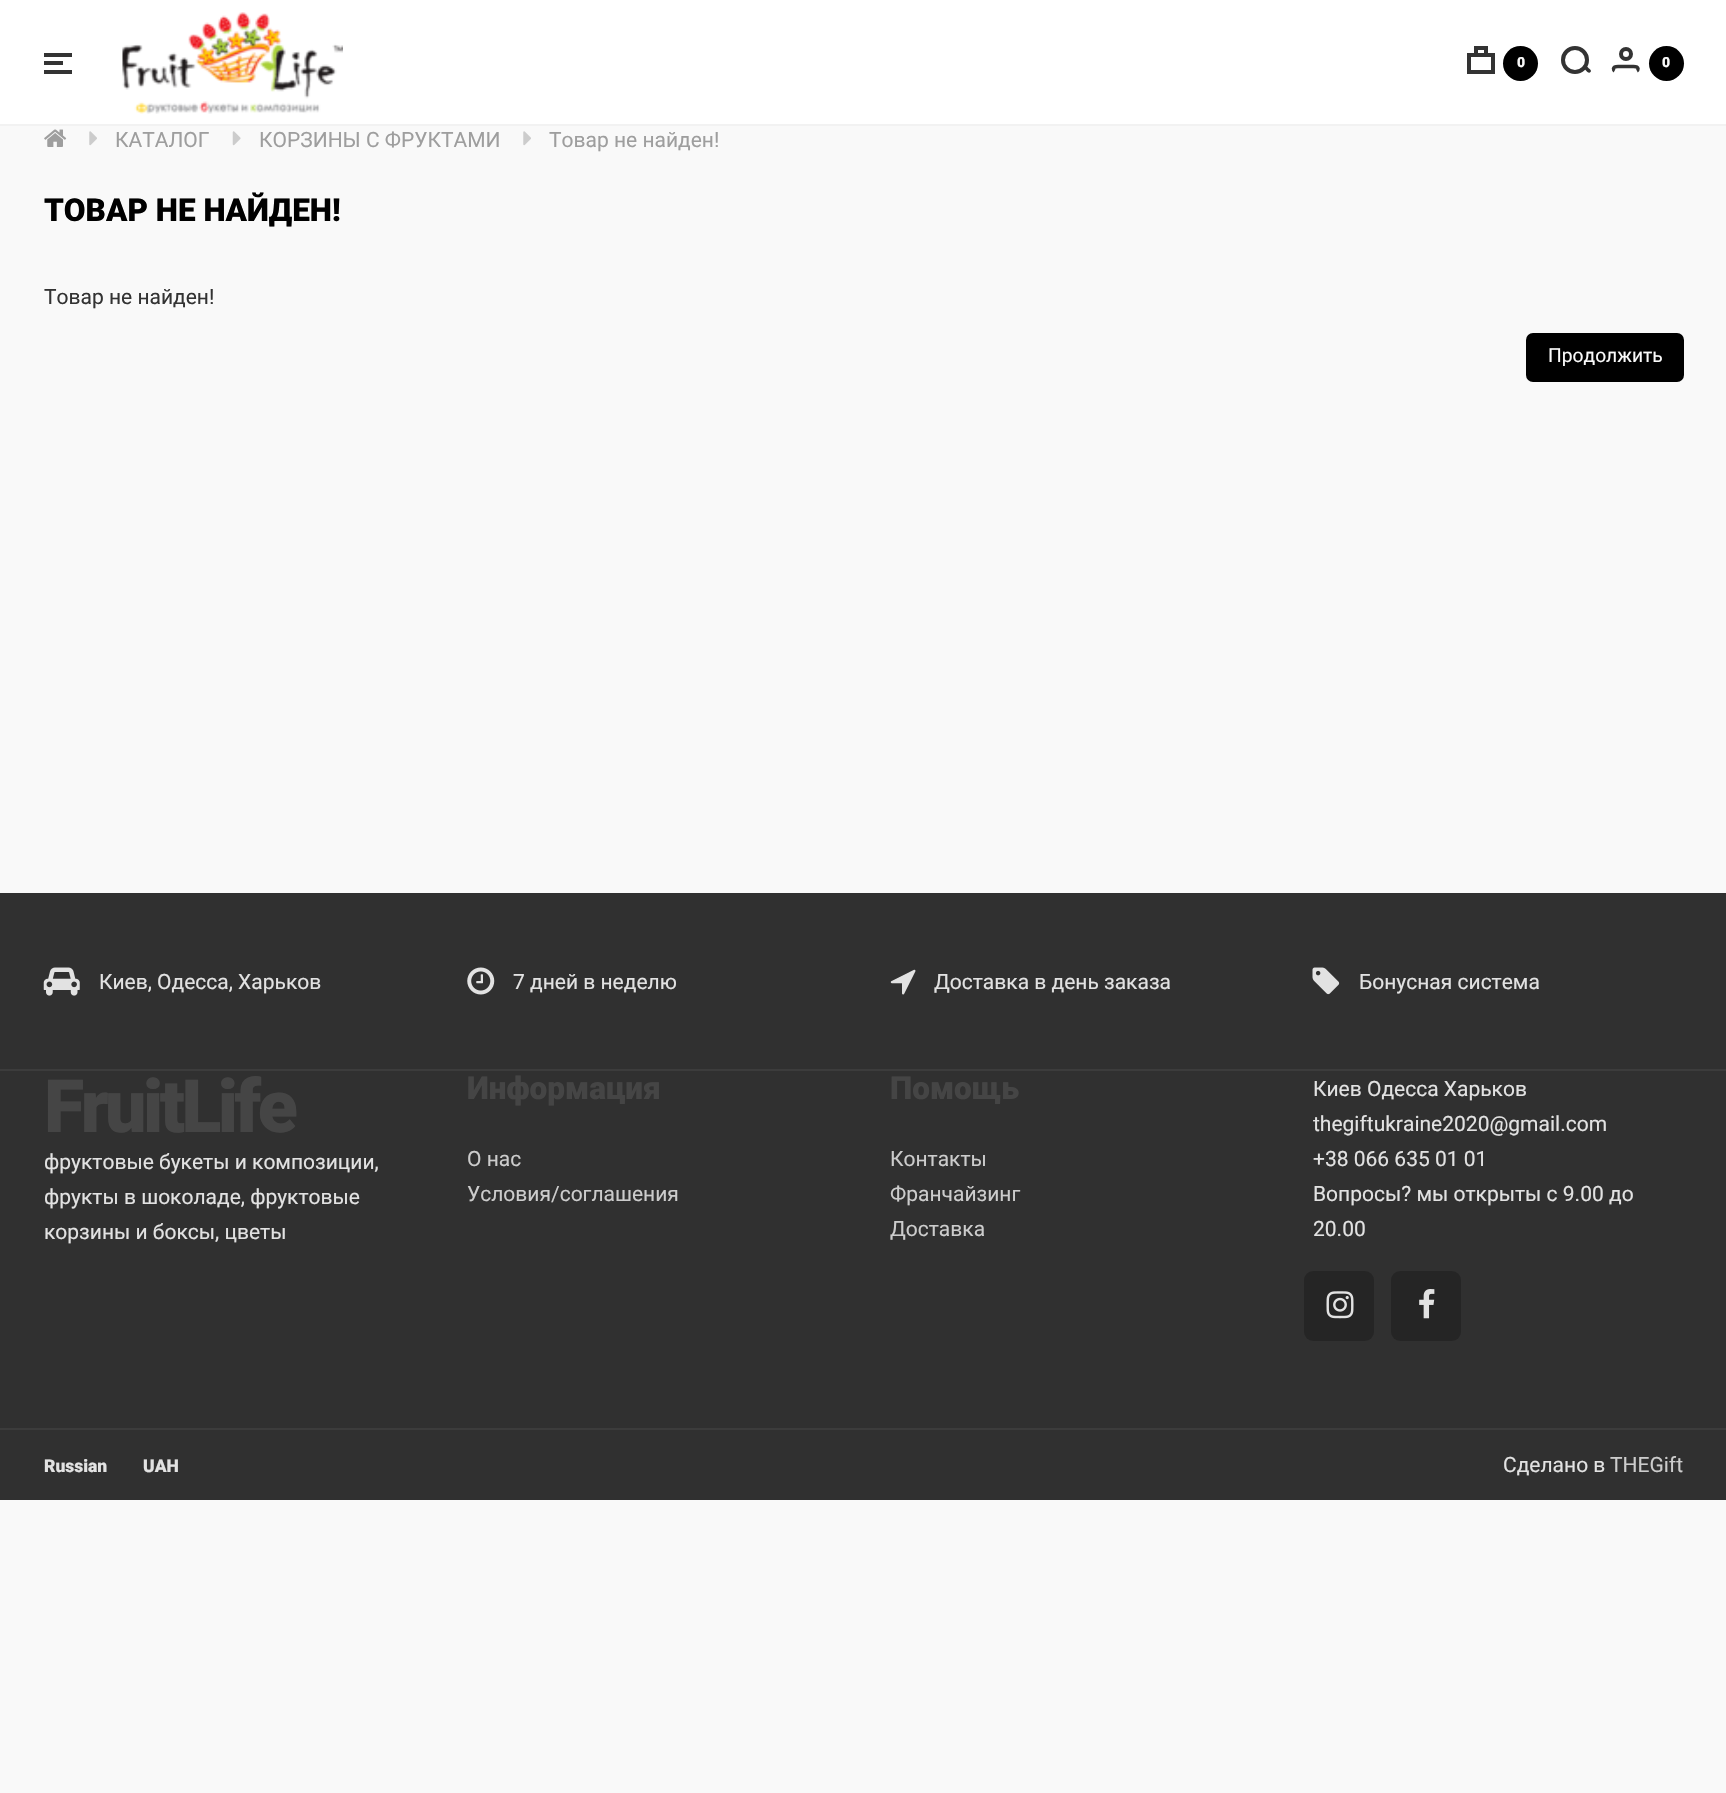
void draw(SkCanvas* canvas) {
    SkPaint paint;
    paint.setAntiAlias(true);
    auto spacedText = [&](const char* s, float x, float y, const SkFont& font, const SkPaint& ink, float letter, float word) {
        std::vector<SkGlyphID> glyphs(font.countText(s, strlen(s), SkTextEncoding::kUTF8));
        std::vector<float> xs(glyphs.size());
        font.textToGlyphs(s, strlen(s), SkTextEncoding::kUTF8, glyphs);
        font.getXPos(glyphs, xs, x);
        float extra = 0;
        for (size_t i = 0; i < glyphs.size(); i++) {
            xs[i] += extra;
            extra += letter + word * (glyphs[i] == font.unicharToGlyph(' '));
        }
        canvas->drawTextBlob(SkTextBlob::MakeFromPosHGlyphs(glyphs, xs, y, font), 0, 0, ink);
    };
    canvas->clear(0xFFF9F9F9);
    paint.setColor(0xFFFFFFFF);
    canvas->drawRect(SkRect::MakeXYWH(0, 0, 1726, 124), paint);
    paint.setColor(0xFFF2F2F2);
    canvas->drawRect(SkRect::MakeXYWH(0, 124, 1726, 2), paint);
    canvas->drawImageRect(SkImages::DeferredFromEncodedData(SkData::MakeFromFileName("img1.png")), SkRect::MakeXYWH(122, 12, 221, 102), SkSamplingOptions());
    paint.setColor(0xFF333333);
    canvas->drawRect(SkRect::MakeXYWH(44, 53, 28, 4), paint);
    canvas->drawRect(SkRect::MakeXYWH(44, 61, 19, 4), paint);
    canvas->drawRect(SkRect::MakeXYWH(44, 70, 28, 4), paint);
    canvas->drawRect(SkRect::MakeXYWH(1474, 46, 14, 4), paint);
    canvas->drawRect(SkRect::MakeXYWH(1484, 46, 4, 10), paint);
    canvas->drawRect(SkRect::MakeXYWH(1474, 46, 4, 10), paint);
    paint.setStyle(SkPaint::kStroke_Style);
    paint.setStrokeWidth(4);
    canvas->drawRect(SkRect::MakeXYWH(1469, 55, 24, 17), paint);
    paint.setStyle(SkPaint::kFill_Style);
    paint.setColor(0xFF000000);
    canvas->drawCircle(1520.5f, 63.5f, 17.5f, paint);
    SkFont font1(fontMgr->matchFamilyStyle("Roboto", SkFontStyle(900, SkFontStyle::kNormal_Width, SkFontStyle::kUpright_Slant)), 14);
    font1.setSubpixel(true);
    paint.setColor(0xFFFAFAFA);
    canvas->drawString("0", 1517, 67, font1, paint);
    paint.setStyle(SkPaint::kStroke_Style);
    paint.setColor(0xFF333333);
    canvas->drawCircle(1575, 60, 12, paint);
    paint.setStyle(SkPaint::kFill_Style);
    canvas->drawPath(SkPathBuilder().moveTo(1590.5f, 72).cubicTo(1589, 74, 1587, 71.5f, 1586, 70.5f).cubicTo(1585, 69.5f, 1582.5f, 67.5f, 1584, 66).cubicTo(1586, 64.5f, 1587.5f, 67, 1588.5f, 68).cubicTo(1589.5f, 69, 1592, 70.5f, 1590.5f, 72).close().detach(), paint);
    paint.setStyle(SkPaint::kStroke_Style);
    canvas->drawCircle(1626, 54, 5, paint);
    paint.setStrokeWidth(3.5f);
    canvas->drawPath(SkPathBuilder().moveTo(1614.5f, 71).cubicTo(1613.5f, 70.5f, 1613.5f, 69.5f, 1613.5f, 68.5f).cubicTo(1614, 66, 1617.5f, 66.5f, 1619.5f, 66.5f).lineTo(1632, 66.5f).cubicTo(1634, 66.5f, 1637.5f, 66, 1638, 68.5f).cubicTo(1638, 69.5f, 1638, 70.5f, 1637, 71).detach(), paint);
    paint.setStyle(SkPaint::kFill_Style);
    paint.setColor(0xFF000000);
    canvas->drawCircle(1666.5f, 63.5f, 17.5f, paint);
    paint.setColor(0xFFFAFAFA);
    canvas->drawString("0", 1662, 67, font1, paint);
    canvas->drawImageRect(SkImages::DeferredFromEncodedData(SkData::MakeFromFileName("img2.png")), SkRect::MakeXYWH(44, 129, 23, 18), SkSamplingOptions());
    canvas->drawImageRect(SkImages::DeferredFromEncodedData(SkData::MakeFromFileName("img3.png")), SkRect::MakeXYWH(89, 131, 8, 15), SkSamplingOptions());
    SkFont font2(fontMgr->matchFamilyStyle("Roboto", SkFontStyle::Normal()), 21);
    font2.setSubpixel(true);
    paint.setColor(0xFF9E9E9E);
    canvas->drawString("КАТАЛОГ", 115, 147, font2, paint);
    canvas->drawImageRect(SkImages::DeferredFromEncodedData(SkData::MakeFromFileName("img4.png")), SkRect::MakeXYWH(232, 131, 9, 15), SkSamplingOptions());
    canvas->drawString("КОРЗИНЫ С ФРУКТАМИ", 259, 147, font2, paint);
    canvas->drawImageRect(SkImages::DeferredFromEncodedData(SkData::MakeFromFileName("img3.png")), SkRect::MakeXYWH(523, 131, 8, 15), SkSamplingOptions());
    canvas->drawString("Товар не найден!", 549, 147, font2, paint);
    SkFont font3(fontMgr->matchFamilyStyle("Roboto", SkFontStyle(900, SkFontStyle::kNormal_Width, SkFontStyle::kUpright_Slant)), 31.5f);
    font3.setSubpixel(true);
    paint.setColor(0xFF000000);
    canvas->drawString("ТОВАР НЕ НАЙДЕН!", 44, 221, font3, paint);
    paint.setColor(0xFF333333);
    canvas->drawString("Товар не найден!", 44, 304, font2, paint);
    paint.setColor(0xFF000000);
    canvas->drawRoundRect(SkRect::MakeXYWH(1526, 333, 158, 49), 7, 7, paint);
    SkFont font4(fontMgr->matchFamilyStyle("Roboto", SkFontStyle::Normal()), 19.25f);
    font4.setSubpixel(true);
    paint.setColor(0xFFFAFAFA);
    canvas->drawString("Продолжить", 1548, 362, font4, paint);
    paint.setColor(0xFF303030);
    canvas->drawRect(SkRect::MakeXYWH(0, 893, 1726, 607), paint);
    paint.setColor(0xFF3C3C3C);
    canvas->drawRect(SkRect::MakeXYWH(0, 1069, 1726, 2), paint);
    canvas->drawImageRect(SkImages::DeferredFromEncodedData(SkData::MakeFromFileName("img5.png")), SkRect::MakeXYWH(43, 967, 37, 29), SkSamplingOptions());
    paint.setColor(0xFFE2E2E2);
    canvas->drawString("Киев, Одесса, Харьков", 99, 989, font2, paint);
    canvas->drawImageRect(SkImages::DeferredFromEncodedData(SkData::MakeFromFileName("img6.png")), SkRect::MakeXYWH(467, 967, 28, 28), SkSamplingOptions());
    canvas->drawString("7 дней в неделю", 513, 989, font2, paint);
    canvas->drawImageRect(SkImages::DeferredFromEncodedData(SkData::MakeFromFileName("img7.png")), SkRect::MakeXYWH(890, 969, 26, 26), SkSamplingOptions());
    canvas->drawString("Доставка в день заказа", 934, 989, font2, paint);
    canvas->drawImageRect(SkImages::DeferredFromEncodedData(SkData::MakeFromFileName("img8.png")), SkRect::MakeXYWH(1312, 967, 28, 28), SkSamplingOptions());
    canvas->drawString("Бонусная система", 1359, 989, font2, paint);
    SkFont font5(fontMgr->matchFamilyStyle("Roboto", SkFontStyle(900, SkFontStyle::kNormal_Width, SkFontStyle::kUpright_Slant)), 73.5f);
    font5.setSubpixel(true);
    paint.setColor(0xFF454545);
    spacedText("FruitLife", 44, 1132, font5, paint, -3.5f, 0);
    paint.setColor(0xFFE2E2E2);
    canvas->drawString("фруктовые букеты и композиции,", 44, 1169, font2, paint);
    canvas->drawString("фрукты в шоколаде, фруктовые", 44, 1204, font2, paint);
    canvas->drawString("корзины и боксы, цветы", 44, 1239, font2, paint);
    paint.setColor(0xFF454545);
    canvas->drawString("Информация", 467, 1099, font3, paint);
    paint.setColor(0xFFCCCCCC);
    canvas->drawString("О нас", 467, 1166, font2, paint);
    canvas->drawString("Условия/соглашения", 467, 1201, font2, paint);
    paint.setColor(0xFF454545);
    canvas->drawString("Помощь", 890, 1099, font3, paint);
    paint.setColor(0xFFCCCCCC);
    canvas->drawString("Контакты", 890, 1166, font2, paint);
    canvas->drawString("Франчайзинг", 890, 1201, font2, paint);
    canvas->drawString("Доставка", 890, 1236, font2, paint);
    paint.setColor(0xFFE2E2E2);
    canvas->drawString("Киев Одесса Харьков", 1313, 1096, font2, paint);
    canvas->drawString("thegiftukraine2020@gmail.com", 1313, 1131, font2, paint);
    canvas->drawString("+38 066 635 01 01", 1313, 1166, font2, paint);
    canvas->drawString("Вопросы? мы открыты с 9.00 до", 1313, 1201, font2, paint);
    canvas->drawString("20.00", 1313, 1236, font2, paint);
    paint.setColor(0xFF252525);
    canvas->drawRoundRect(SkRect::MakeXYWH(1304, 1271, 70, 70), 9, 9, paint);
    canvas->drawImageRect(SkImages::DeferredFromEncodedData(SkData::MakeFromFileName("img9.png")), SkRect::MakeXYWH(1326, 1291, 28, 28), SkSamplingOptions());
    canvas->drawRoundRect(SkRect::MakeXYWH(1391, 1271, 70, 70), 9, 9, paint);
    canvas->drawImageRect(SkImages::DeferredFromEncodedData(SkData::MakeFromFileName("img10.png")), SkRect::MakeXYWH(1419, 1289, 16, 30), SkSamplingOptions());
    paint.setColor(0xFF3C3C3C);
    canvas->drawRect(SkRect::MakeXYWH(0, 1428, 1726, 2), paint);
    SkFont font6(fontMgr->matchFamilyStyle("Roboto", SkFontStyle(900, SkFontStyle::kNormal_Width, SkFontStyle::kUpright_Slant)), 17.5f);
    font6.setSubpixel(true);
    paint.setColor(0xFFE2E2E2);
    canvas->drawString("Russian", 44, 1472, font6, paint);
    canvas->drawString("UAH", 143, 1472, font6, paint);
    canvas->drawString("Сделано в", 1503, 1472, font2, paint);
    paint.setColor(0xFFCCCCCC);
    canvas->drawString("THEGift", 1610, 1472, font2, paint);
}
